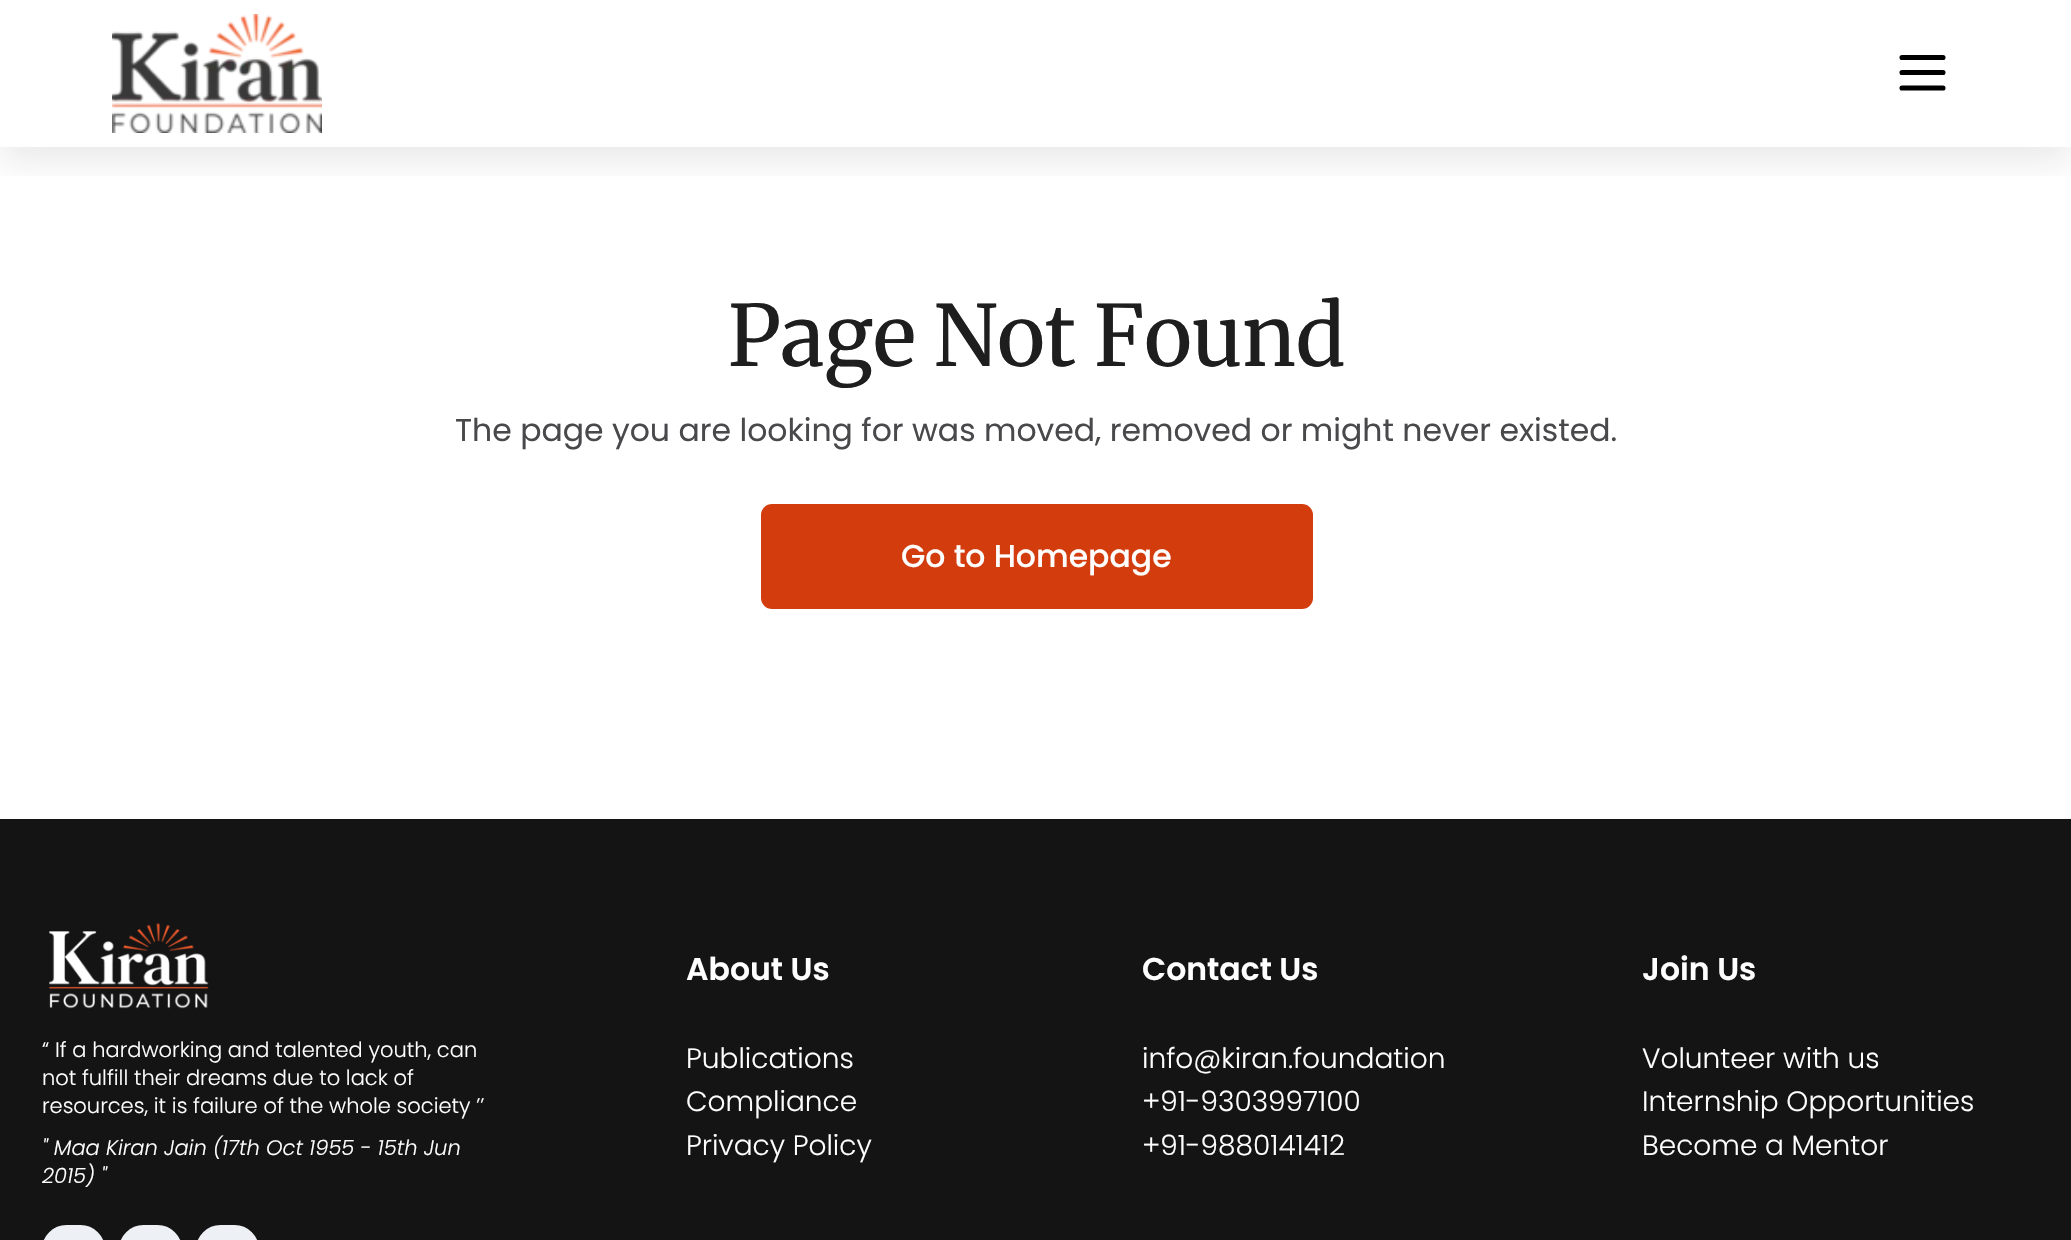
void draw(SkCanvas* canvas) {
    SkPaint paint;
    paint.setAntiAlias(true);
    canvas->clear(0xFFFFFFFF);
    canvas->save();
    canvas->clipRect(SkRect::MakeXYWH(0, 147, 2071, 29));
    paint.setColor(0x1A1E1E1E);
    paint.setMaskFilter(SkMaskFilter::MakeBlur(kNormal_SkBlurStyle, 17.5f));
    canvas->drawRect(SkRect::MakeXYWH(0, 14, 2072, 147), paint);
    paint.setMaskFilter(nullptr);
    canvas->restore();
    canvas->drawImageRect(SkImages::DeferredFromEncodedData(SkData::MakeFromFileName("img1.png")), SkRect::MakeXYWH(112, 14, 210, 119), SkSamplingOptions());
    paint.setStyle(SkPaint::kStroke_Style);
    paint.setStrokeWidth(5.1f);
    paint.setStrokeCap(SkPaint::kRound_Cap);
    paint.setColor(0xFF000000);
    canvas->drawPath(SkPathBuilder().moveTo(1902, 88).lineTo(1943, 88).moveTo(1902, 72.5f).lineTo(1943, 72.5f).moveTo(1902, 57.5f).lineTo(1943, 57.5f).detach(), paint);
    SkFont font1(fontMgr->matchFamilyStyle("Merriweather", SkFontStyle::Normal()), 84);
    font1.setSubpixel(true);
    paint.setStyle(SkPaint::kFill_Style);
    paint.setColor(0xFF1E1E1E);
    canvas->drawString("Page Not Found", 728, 366, font1, paint);
    SkFont font2(fontMgr->matchFamilyStyle("Poppins", SkFontStyle::Normal()), 31.5f);
    font2.setSubpixel(true);
    paint.setColor(0xFF49494C);
    canvas->drawString("The page you are looking for was moved, removed or might never existed.", 455, 441, font2, paint);
    paint.setColor(0xFFD33C0D);
    canvas->drawRoundRect(SkRect::MakeXYWH(761, 504, 552, 105), 11, 11, paint);
    SkFont font3(fontMgr->matchFamilyStyle("Poppins", SkFontStyle(500, SkFontStyle::kNormal_Width, SkFontStyle::kUpright_Slant)), 31.5f);
    font3.setSubpixel(true);
    paint.setColor(0xFFFFFFFF);
    canvas->drawString("Go to Homepage", 901, 567, font3, paint);
    paint.setColor(0xFF141414);
    canvas->drawRect(SkRect::MakeXYWH(0, 819, 2071, 421), paint);
    canvas->drawImageRect(SkImages::DeferredFromEncodedData(SkData::MakeFromFileName("img2.png")), SkRect::MakeXYWH(49, 923, 160, 86), SkSamplingOptions());
    SkFont font4(fontMgr->matchFamilyStyle("Poppins", SkFontStyle(300, SkFontStyle::kNormal_Width, SkFontStyle::kUpright_Slant)), 21);
    font4.setSubpixel(true);
    paint.setColor(0xFFFFFFFF);
    canvas->drawString("“ If a hardworking and talented youth, can", 42, 1057, font4, paint);
    canvas->drawString("not fulfill their dreams due to lack of", 42, 1085, font4, paint);
    canvas->drawString("resources, it is failure of the whole society ’’", 42, 1113, font4, paint);
    SkFont font5(fontMgr->matchFamilyStyle("Poppins", SkFontStyle(300, SkFontStyle::kNormal_Width, SkFontStyle::kItalic_Slant)), 21);
    font5.setSubpixel(true);
    canvas->drawString("\" Maa Kiran Jain (17th Oct 1955 - 15th Jun", 42, 1155, font5, paint);
    canvas->drawString("2015) \"", 42, 1183, font5, paint);
    paint.setColor(0xFFEDF1F5);
    canvas->drawRoundRect(SkRect::MakeXYWH(43, 1226, 61, 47), 30.5f, 30.5f, paint);
    paint.setStyle(SkPaint::kStroke_Style);
    paint.setStrokeWidth(2);
    paint.setStrokeCap(SkPaint::kButt_Cap);
    canvas->drawRoundRect(SkRect::MakeXYWH(43, 1226, 61, 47), 30.5f, 30.5f, paint);
    paint.setStyle(SkPaint::kFill_Style);
    canvas->drawRoundRect(SkRect::MakeXYWH(120, 1226, 61, 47), 30.5f, 30.5f, paint);
    paint.setStyle(SkPaint::kStroke_Style);
    canvas->drawRoundRect(SkRect::MakeXYWH(120, 1226, 61, 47), 30.5f, 30.5f, paint);
    paint.setStyle(SkPaint::kFill_Style);
    canvas->drawRoundRect(SkRect::MakeXYWH(197, 1226, 61, 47), 30.5f, 30.5f, paint);
    paint.setStyle(SkPaint::kStroke_Style);
    canvas->drawRoundRect(SkRect::MakeXYWH(197, 1226, 61, 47), 30.5f, 30.5f, paint);
    SkFont font6(fontMgr->matchFamilyStyle("Poppins", SkFontStyle(600, SkFontStyle::kNormal_Width, SkFontStyle::kUpright_Slant)), 31.5f);
    font6.setSubpixel(true);
    paint.setStyle(SkPaint::kFill_Style);
    paint.setColor(0xFFFFFFFF);
    canvas->drawString("About Us", 686, 980, font6, paint);
    SkFont font7(fontMgr->matchFamilyStyle("Poppins", SkFontStyle(300, SkFontStyle::kNormal_Width, SkFontStyle::kUpright_Slant)), 28);
    font7.setSubpixel(true);
    canvas->drawString("Publications", 686, 1068, font7, paint);
    canvas->drawString("Compliance", 686, 1111, font7, paint);
    canvas->drawString("Privacy Policy", 686, 1155, font7, paint);
    canvas->drawString("Contact Us", 1142, 980, font6, paint);
    canvas->drawString("info@kiran.foundation", 1142, 1068, font7, paint);
    canvas->drawString("+91-9303997100", 1142, 1111, font7, paint);
    canvas->drawString("+91-9880141412", 1142, 1155, font7, paint);
    canvas->drawString("Join Us", 1642, 980, font6, paint);
    canvas->drawString("Volunteer with us", 1642, 1068, font7, paint);
    canvas->drawString("Internship Opportunities", 1642, 1111, font7, paint);
    canvas->drawString("Become a Mentor", 1642, 1155, font7, paint);
}
